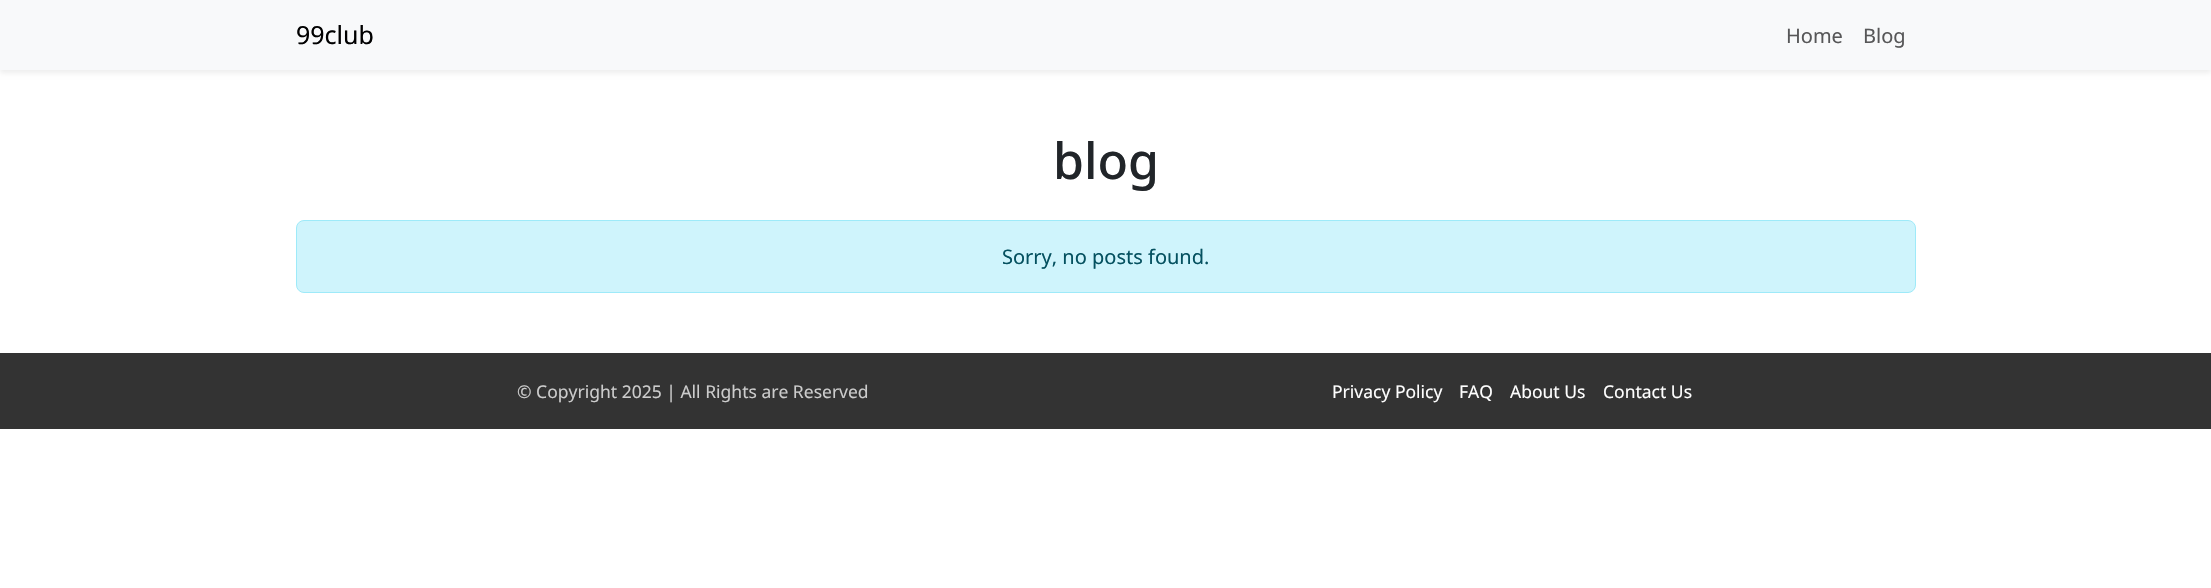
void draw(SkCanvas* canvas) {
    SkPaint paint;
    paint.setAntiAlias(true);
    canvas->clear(0xFFFFFFFF);
    paint.setColor(0x12000000);
    paint.setMaskFilter(SkMaskFilter::MakeBlur(kNormal_SkBlurStyle, 2.5f));
    canvas->drawRect(SkRect::MakeXYWH(0, 3, 2211, 70), paint);
    paint.setMaskFilter(nullptr);
    paint.setColor(0xFFF8F9FA);
    canvas->drawRect(SkRect::MakeXYWH(0, 0, 2211, 70), paint);
    SkFont font1(fontMgr->matchFamilyStyle("Noto Sans", SkFontStyle::Normal()), 25);
    font1.setSubpixel(true);
    paint.setColor(0xFF000000);
    canvas->drawString("99club", 296, 44, font1, paint);
    SkFont font2(fontMgr->matchFamilyStyle("Noto Sans", SkFontStyle::Normal()), 20);
    font2.setSubpixel(true);
    paint.setColor(0xFF575758);
    canvas->drawString("Home", 1786, 43, font2, paint);
    canvas->drawString("Blog", 1863, 43, font2, paint);
    SkFont font3(fontMgr->matchFamilyStyle("Noto Sans", SkFontStyle(500, SkFontStyle::kNormal_Width, SkFontStyle::kUpright_Slant)), 50);
    font3.setSubpixel(true);
    paint.setColor(0xFF212529);
    canvas->drawString("blog", 1053, 179, font3, paint);
    paint.setColor(0xFFCFF4FC);
    canvas->drawRoundRect(SkRect::MakeXYWH(296.5f, 220.5f, 1619, 72), 7.5f, 7.5f, paint);
    paint.setStyle(SkPaint::kStroke_Style);
    paint.setStrokeWidth(1);
    paint.setColor(0xFF9EEAF9);
    canvas->drawRoundRect(SkRect::MakeXYWH(296.5f, 220.5f, 1619, 72), 7.5f, 7.5f, paint);
    paint.setStyle(SkPaint::kFill_Style);
    paint.setColor(0xFF055160);
    canvas->drawString("Sorry, no posts found.", 1002, 264, font2, paint);
    paint.setColor(0xFF333333);
    canvas->drawRect(SkRect::MakeXYWH(0, 353, 2211, 76), paint);
    SkFont font4(fontMgr->matchFamilyStyle("Noto Sans", SkFontStyle::Normal()), 17.5f);
    font4.setSubpixel(true);
    paint.setColor(0xFFCCCCCC);
    canvas->drawString("© Copyright 2025 | All Rights are Reserved", 517, 398, font4, paint);
    paint.setColor(0xFFFFFFFF);
    canvas->drawString("Privacy Policy", 1332, 398, font4, paint);
    canvas->drawString("FAQ", 1459, 398, font4, paint);
    canvas->drawString("About Us", 1510, 398, font4, paint);
    canvas->drawString("Contact Us", 1603, 398, font4, paint);
}
